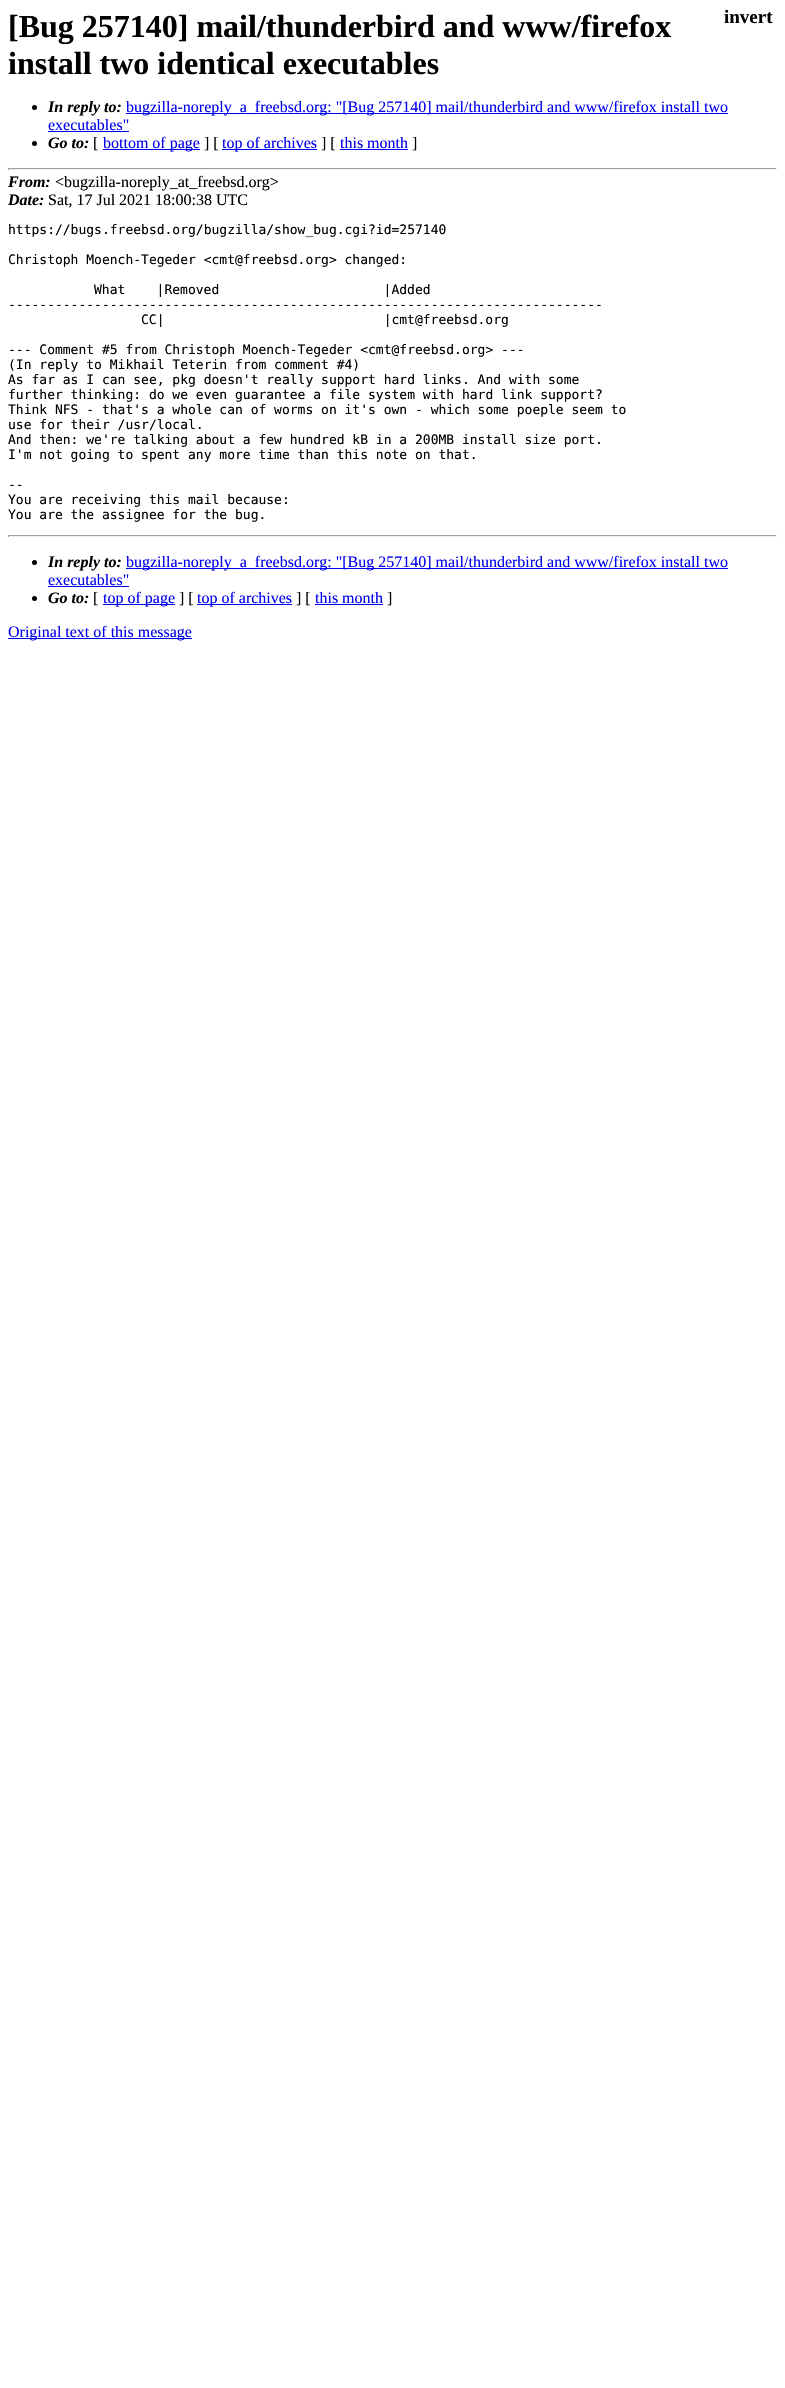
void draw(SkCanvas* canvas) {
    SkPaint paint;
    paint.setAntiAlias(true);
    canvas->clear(0xFFFFFFFF);
    SkFont font1(fontMgr->matchFamilyStyle("Liberation Serif", SkFontStyle::Bold()), 32);
    font1.setSubpixel(true);
    paint.setColor(0xFF000000);
    canvas->drawString("[Bug 257140] mail/thunderbird and www/firefox", 8, 37, font1, paint);
    canvas->drawString("install two identical executables", 8, 74, font1, paint);
    canvas->drawCircle(34.5f, 107.5f, 2.5f, paint);
    SkFont font2(fontMgr->matchFamilyStyle("Liberation Serif", SkFontStyle::BoldItalic()), 16);
    font2.setSubpixel(true);
    canvas->drawString("In reply to:", 48, 112, font2, paint);
    paint.setColor(0xFF0000EE);
    canvas->drawRect(SkRect::MakeXYWH(126, 113, 602, 1), paint);
    SkFont font3(fontMgr->matchFamilyStyle("Liberation Serif", SkFontStyle::Normal()), 16);
    font3.setSubpixel(true);
    canvas->drawString("bugzilla-noreply_a_freebsd.org: \"[Bug 257140] mail/thunderbird and www/firefox install two", 126, 112, font3, paint);
    canvas->drawString("executables\"", 48, 130, font3, paint);
    canvas->drawRect(SkRect::MakeXYWH(48, 131, 81, 1), paint);
    paint.setColor(0xFF000000);
    canvas->drawCircle(34.5f, 143.5f, 2.5f, paint);
    canvas->drawString("Go to:", 48, 148, font2, paint);
    canvas->drawString("[", 93, 148, font3, paint);
    paint.setColor(0xFF0000EE);
    canvas->drawRect(SkRect::MakeXYWH(103, 149, 97, 1), paint);
    canvas->drawString("bottom of page", 103, 148, font3, paint);
    paint.setColor(0xFF000000);
    canvas->drawString("] [", 204, 148, font3, paint);
    paint.setColor(0xFF0000EE);
    canvas->drawRect(SkRect::MakeXYWH(222, 149, 95, 1), paint);
    canvas->drawString("top of archives", 222, 148, font3, paint);
    paint.setColor(0xFF000000);
    canvas->drawString("] [", 321, 148, font3, paint);
    paint.setColor(0xFF0000EE);
    canvas->drawString("this month", 340, 148, font3, paint);
    canvas->drawRect(SkRect::MakeXYWH(340, 149, 68, 1), paint);
    paint.setColor(0xFF000000);
    canvas->drawString("]", 412, 148, font3, paint);
    paint.setColor(0xFF9F9F9F);
    canvas->drawRect(SkRect::MakeXYWH(8, 168, 769, 1), paint);
    paint.setColor(0xFFEEEEEE);
    canvas->drawRect(SkRect::MakeXYWH(776, 168, 1, 2), paint);
    canvas->drawRect(SkRect::MakeXYWH(8, 169, 769, 1), paint);
    paint.setColor(0xFF9F9F9F);
    canvas->drawRect(SkRect::MakeXYWH(8, 168, 1, 2), paint);
    SkFont font4(fontMgr->matchFamilyStyle("Liberation Serif", SkFontStyle::Bold()), 19);
    font4.setSubpixel(true);
    paint.setColor(0xFF000000);
    canvas->drawString("invert", 724, 23, font4, paint);
    canvas->drawString("From:", 8, 187, font2, paint);
    canvas->drawString("<bugzilla-noreply_at_freebsd.org>", 55, 187, font3, paint);
    canvas->drawString("Date:", 8, 205, font2, paint);
    canvas->drawString("Sat, 17 Jul 2021 18:00:38 UTC", 48, 205, font3, paint);
    SkFont font5(fontMgr->matchFamilyStyle("DejaVu Sans Mono", SkFontStyle::Normal()), 13);
    font5.setSubpixel(true);
    canvas->drawString("https://bugs.freebsd.org/bugzilla/show_bug.cgi?id=257140", 8, 234, font5, paint);
    canvas->drawString("Christoph Moench-Tegeder <cmt@freebsd.org> changed:", 8, 264, font5, paint);
    canvas->drawString("What    |Removed                     |Added", 94, 294, font5, paint);
    canvas->drawString("----------------------------------------------------------------------------", 8, 309, font5, paint);
    canvas->drawString("CC|                            |cmt@freebsd.org", 141, 324, font5, paint);
    canvas->drawString("--- Comment #5 from Christoph Moench-Tegeder <cmt@freebsd.org> ---", 8, 354, font5, paint);
    canvas->drawString("(In reply to Mikhail Teterin from comment #4)", 8, 369, font5, paint);
    canvas->drawString("As far as I can see, pkg doesn't really support hard links. And with some", 8, 384, font5, paint);
    canvas->drawString("further thinking: do we even guarantee a file system with hard link support?", 8, 399, font5, paint);
    canvas->drawString("Think NFS - that's a whole can of worms on it's own - which some poeple seem to", 8, 414, font5, paint);
    canvas->drawString("use for their /usr/local.", 8, 429, font5, paint);
    canvas->drawString("And then: we're talking about a few hundred kB in a 200MB install size port.", 8, 444, font5, paint);
    canvas->drawString("I'm not going to spent any more time than this note on that.", 8, 459, font5, paint);
    canvas->drawString("--", 8, 489, font5, paint);
    canvas->drawString("You are receiving this mail because:", 8, 504, font5, paint);
    canvas->drawString("You are the assignee for the bug.", 8, 519, font5, paint);
    paint.setColor(0xFF9F9F9F);
    canvas->drawRect(SkRect::MakeXYWH(8, 535, 769, 1), paint);
    paint.setColor(0xFFEEEEEE);
    canvas->drawRect(SkRect::MakeXYWH(776, 535, 1, 2), paint);
    canvas->drawRect(SkRect::MakeXYWH(8, 536, 769, 1), paint);
    paint.setColor(0xFF9F9F9F);
    canvas->drawRect(SkRect::MakeXYWH(8, 535, 1, 2), paint);
    paint.setColor(0xFF000000);
    canvas->drawCircle(34.5f, 562.5f, 2.5f, paint);
    canvas->drawString("In reply to:", 48, 567, font2, paint);
    paint.setColor(0xFF0000EE);
    canvas->drawRect(SkRect::MakeXYWH(126, 568, 602, 1), paint);
    canvas->drawString("bugzilla-noreply_a_freebsd.org: \"[Bug 257140] mail/thunderbird and www/firefox install two", 126, 567, font3, paint);
    canvas->drawString("executables\"", 48, 585, font3, paint);
    canvas->drawRect(SkRect::MakeXYWH(48, 586, 81, 1), paint);
    paint.setColor(0xFF000000);
    canvas->drawCircle(34.5f, 598.5f, 2.5f, paint);
    canvas->drawString("Go to:", 48, 603, font2, paint);
    canvas->drawString("[", 93, 603, font3, paint);
    paint.setColor(0xFF0000EE);
    canvas->drawRect(SkRect::MakeXYWH(103, 604, 72, 1), paint);
    canvas->drawString("top of page", 103, 603, font3, paint);
    paint.setColor(0xFF000000);
    canvas->drawString("] [", 179, 603, font3, paint);
    paint.setColor(0xFF0000EE);
    canvas->drawRect(SkRect::MakeXYWH(197, 604, 95, 1), paint);
    canvas->drawString("top of archives", 197, 603, font3, paint);
    paint.setColor(0xFF000000);
    canvas->drawString("] [", 296, 603, font3, paint);
    paint.setColor(0xFF0000EE);
    canvas->drawString("this month", 315, 603, font3, paint);
    canvas->drawRect(SkRect::MakeXYWH(315, 604, 68, 1), paint);
    paint.setColor(0xFF000000);
    canvas->drawString("]", 387, 603, font3, paint);
    paint.setColor(0xFF0000EE);
    canvas->drawRect(SkRect::MakeXYWH(8, 638, 184, 1), paint);
    canvas->drawString("Original text of this message", 8, 637, font3, paint);
}
